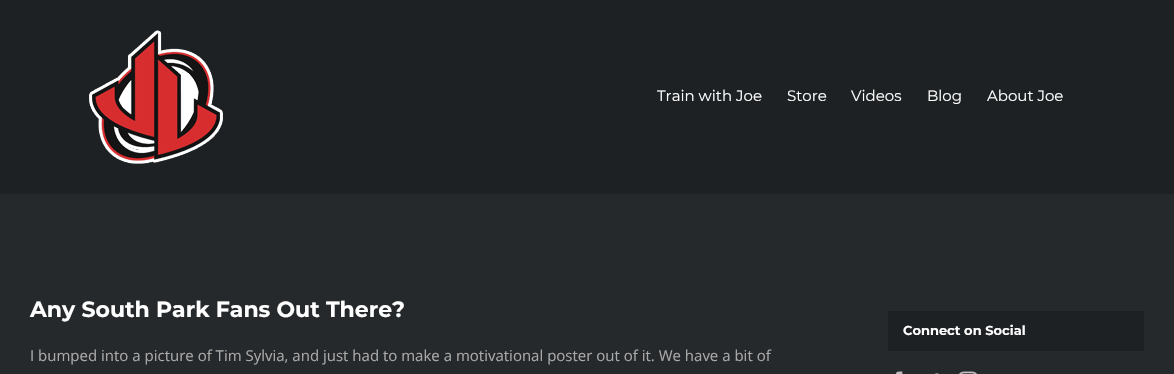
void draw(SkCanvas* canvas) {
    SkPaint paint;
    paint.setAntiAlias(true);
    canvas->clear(0xFF25292B);
    paint.setColor(0xFF1E2123);
    canvas->drawRect(SkRect::MakeXYWH(0, 0, 1174, 194), paint);
    canvas->drawImageRect(SkImages::DeferredFromEncodedData(SkData::MakeFromFileName("img1.png")), SkRect::MakeXYWH(89, 30, 134, 134), SkSamplingOptions());
    SkFont font1(fontMgr->matchFamilyStyle("Montserrat", SkFontStyle::Normal()), 15);
    font1.setSubpixel(true);
    paint.setColor(0xFFFFFFFF);
    canvas->drawString("Train with Joe", 657, 101, font1, paint);
    canvas->drawString("Store", 787, 101, font1, paint);
    canvas->drawString("Videos", 851, 101, font1, paint);
    canvas->drawString("Blog", 927, 101, font1, paint);
    canvas->drawString("About Joe", 987, 101, font1, paint);
    SkFont font2(fontMgr->matchFamilyStyle("Montserrat", SkFontStyle::Bold()), 22);
    font2.setSubpixel(true);
    canvas->drawString("Any South Park Fans Out There?", 30, 317, font2, paint);
    SkFont font3(fontMgr->matchFamilyStyle("Open Sans", SkFontStyle::Normal()), 15);
    font3.setSubpixel(true);
    paint.setColor(0xFFAAA9A9);
    canvas->drawString("I bumped into a picture of Tim Sylvia, and just had to make a motivational poster out of it. We have a bit of", 30, 361, font3, paint);
    paint.setColor(0xFF1E2123);
    canvas->drawRect(SkRect::MakeXYWH(888, 311, 256, 40), paint);
    SkFont font4(fontMgr->matchFamilyStyle("Montserrat", SkFontStyle::Bold()), 13);
    font4.setSubpixel(true);
    paint.setColor(0xFFFFFFFF);
    canvas->drawString("Connect on Social", 903, 335, font4, paint);
    canvas->drawImageRect(SkImages::DeferredFromEncodedData(SkData::MakeFromFileName("img2.png")), SkRect::MakeXYWH(895, 371, 8, 3), SkSamplingOptions());
    canvas->drawImageRect(SkImages::DeferredFromEncodedData(SkData::MakeFromFileName("img3.png")), SkRect::MakeXYWH(935, 373, 8, 1), SkSamplingOptions());
    canvas->drawImageRect(SkImages::DeferredFromEncodedData(SkData::MakeFromFileName("img4.png")), SkRect::MakeXYWH(959, 371, 18, 3), SkSamplingOptions());
}
